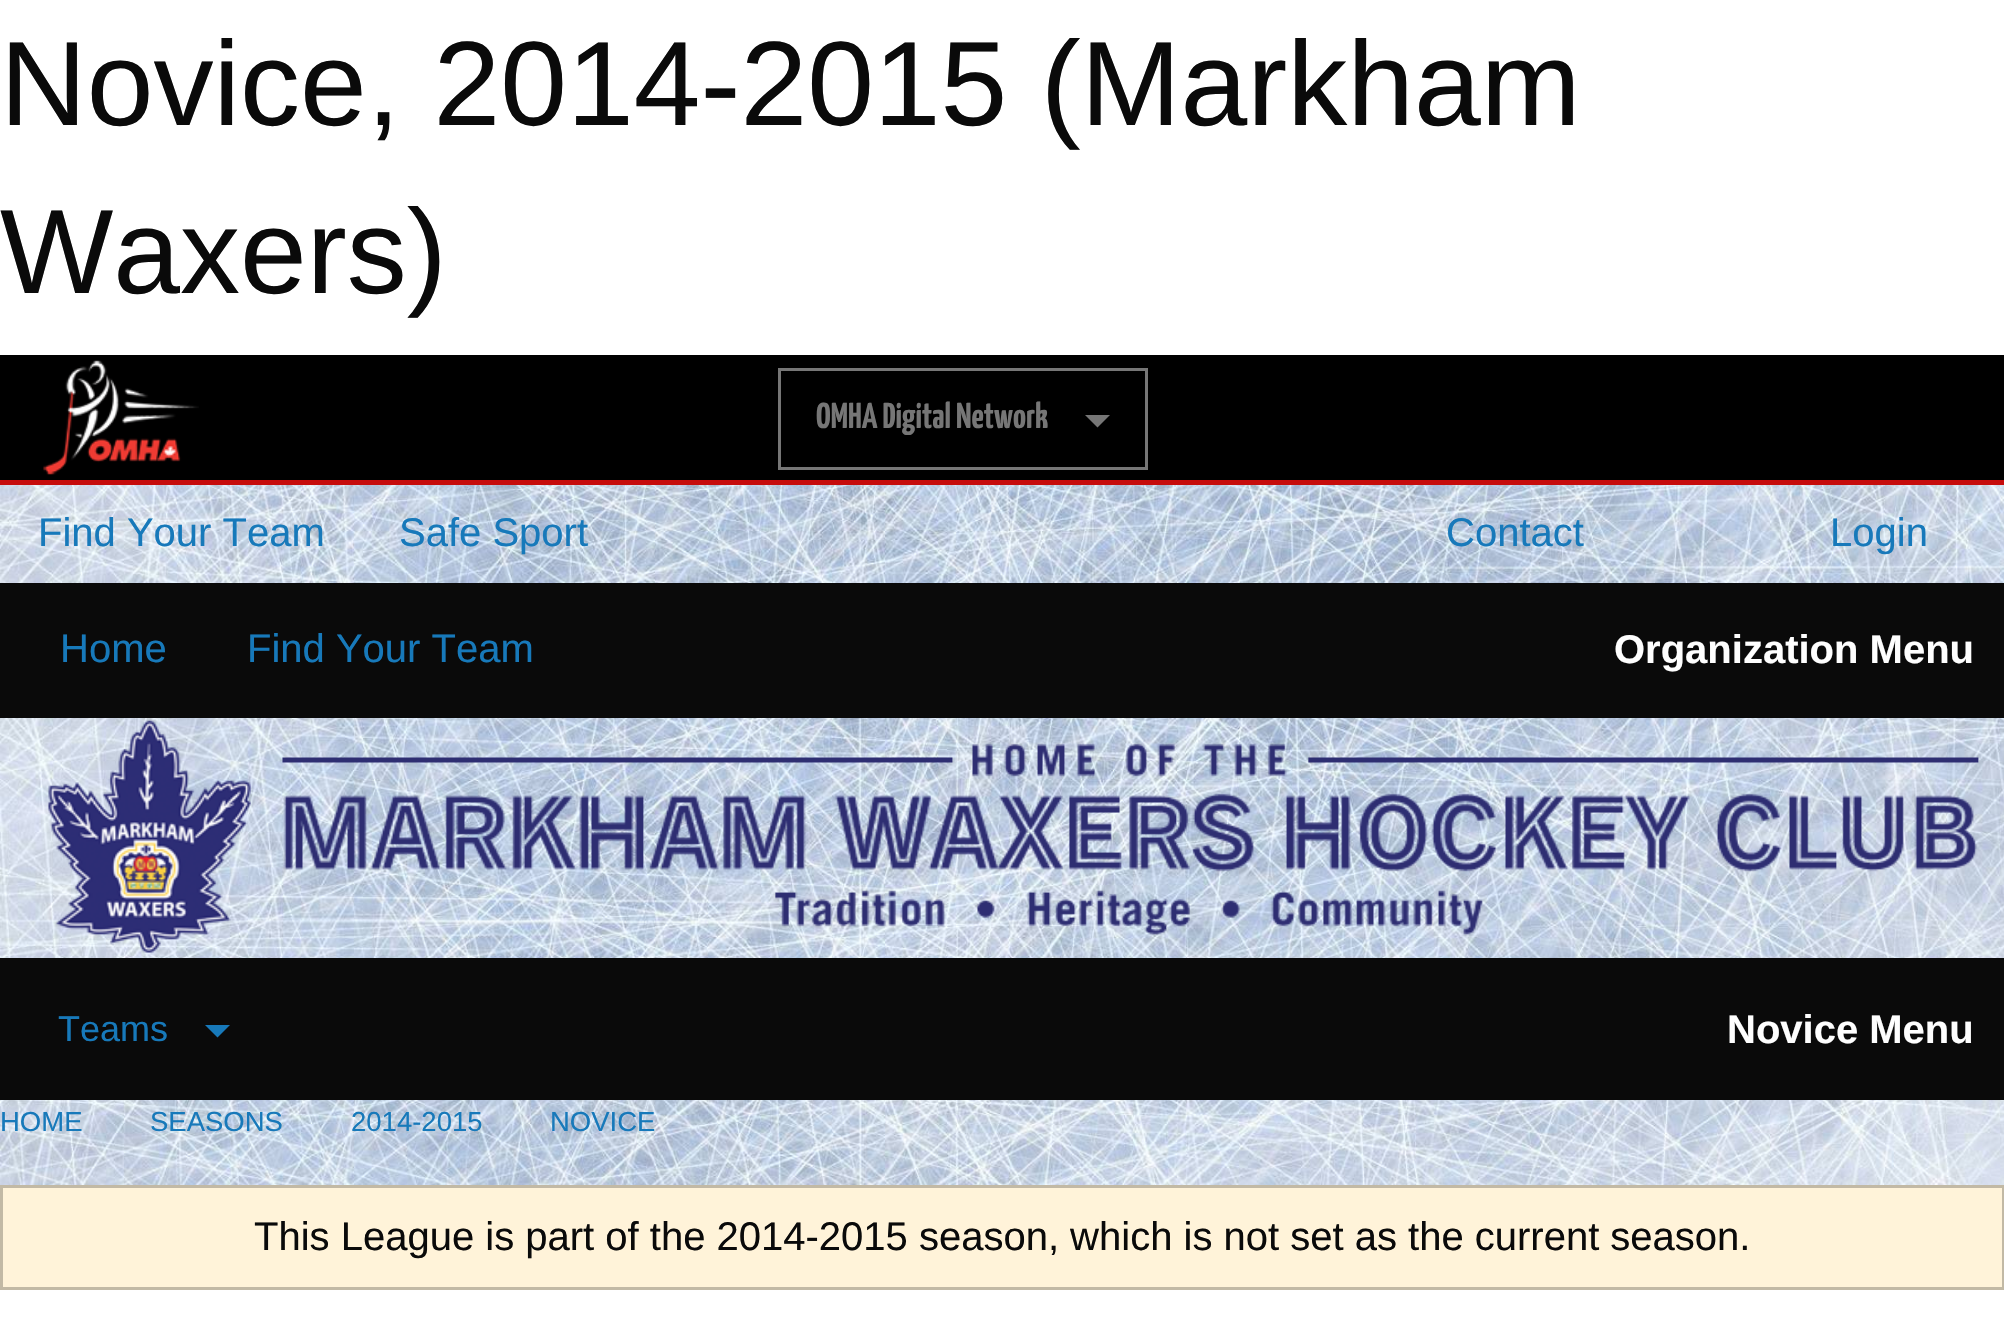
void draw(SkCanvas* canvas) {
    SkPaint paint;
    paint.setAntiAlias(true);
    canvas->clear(0xFFFFFFFF);
    SkFont font1(fontMgr->matchFamilyStyle("Liberation Sans", SkFontStyle::Normal()), 120);
    font1.setSubpixel(true);
    paint.setColor(0xFF0A0A0A);
    canvas->drawString("Novice, 2014-2015 (Markham", 0, 125, font1, paint);
    canvas->drawString("Waxers)", 0, 293, font1, paint);
    paint.setColor(0xFF000000);
    canvas->drawRect(SkRect::MakeXYWH(0, 355, 2004, 125), paint);
    paint.setColor(0xFFC60C0C);
    canvas->drawRect(SkRect::MakeXYWH(0, 480, 2004, 5), paint);
    canvas->drawImageRect(SkImages::DeferredFromEncodedData(SkData::MakeFromFileName("img1.png")), SkRect::MakeXYWH(43, 360, 156, 115), SkSamplingOptions());
    paint.setStyle(SkPaint::kStroke_Style);
    paint.setStrokeWidth(3);
    paint.setColor(0xFF767676);
    canvas->drawRect(SkRect::MakeXYWH(779.5f, 369.5f, 367, 99), paint);
    SkFont font2(fontMgr->matchFamilyStyle("Yanone Kaffeesatz", SkFontStyle(200, SkFontStyle::kNormal_Width, SkFontStyle::kUpright_Slant)), 36);
    font2.setSubpixel(true);
    paint.setStyle(SkPaint::kFill_Style);
    canvas->drawString("OMHA Digital Network", 816, 428, font2, paint);
    canvas->drawPath(SkPathBuilder().moveTo(1085, 415).lineTo(1110, 415).lineTo(1097.5f, 427.5f).close().detach(), paint);
    canvas->drawImageRect(SkImages::DeferredFromEncodedData(SkData::MakeFromFileName("img2.png")), SkRect::MakeXYWH(0, 485, 2004, 700), SkSamplingOptions());
    SkFont font3(fontMgr->matchFamilyStyle("Liberation Sans", SkFontStyle::Normal()), 40);
    font3.setSubpixel(true);
    paint.setColor(0xFF1779BA);
    canvas->drawString("Find Your Team", 38, 546, font3, paint);
    canvas->drawString("Safe Sport", 399, 546, font3, paint);
    canvas->drawString("Contact", 1446, 546, font3, paint);
    canvas->drawString("Login", 1830, 546, font3, paint);
    paint.setColor(0xFF0A0A0A);
    canvas->drawRect(SkRect::MakeXYWH(0, 583, 2004, 135), paint);
    paint.setColor(0xFF1779BA);
    canvas->drawString("Home", 60, 662, font3, paint);
    canvas->drawString("Find Your Team", 247, 662, font3, paint);
    SkFont font4(fontMgr->matchFamilyStyle("Liberation Sans", SkFontStyle::Bold()), 40);
    font4.setSubpixel(true);
    paint.setColor(0xFFFEFEFE);
    canvas->drawString("Organization Menu", 1614, 663, font4, paint);
    canvas->drawImageRect(SkImages::DeferredFromEncodedData(SkData::MakeFromFileName("img3.png")), SkRect::MakeXYWH(48, 720, 1931, 233), SkSamplingOptions());
    paint.setColor(0xFF0A0A0A);
    canvas->drawRect(SkRect::MakeXYWH(0, 958, 2004, 142), paint);
    SkFont font5(fontMgr->matchFamilyStyle("Liberation Sans", SkFontStyle::Normal()), 36);
    font5.setSubpixel(true);
    paint.setColor(0xFF1779BA);
    canvas->drawString("Teams", 58, 1041, font5, paint);
    canvas->drawPath(SkPathBuilder().moveTo(205, 1025).lineTo(230, 1025).lineTo(217.5f, 1037.5f).close().detach(), paint);
    paint.setColor(0xFFFEFEFE);
    canvas->drawString("Novice Menu", 1727, 1043, font4, paint);
    SkFont font6(fontMgr->matchFamilyStyle("Liberation Sans", SkFontStyle::Normal()), 27.5f);
    font6.setSubpixel(true);
    paint.setColor(0xFF1779BA);
    canvas->drawString("HOME", 0, 1131, font6, paint);
    canvas->drawString("SEASONS", 150, 1131, font6, paint);
    canvas->drawString("2014-2015", 351, 1131, font6, paint);
    canvas->drawString("NOVICE", 550, 1131, font6, paint);
    paint.setColor(0xFFFFF3D9);
    canvas->drawRect(SkRect::MakeXYWH(1.5f, 1186.5f, 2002, 102), paint);
    paint.setStyle(SkPaint::kStroke_Style);
    paint.setColor(0xFFC2B9A5);
    canvas->drawRect(SkRect::MakeXYWH(1.5f, 1186.5f, 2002, 102), paint);
    paint.setStyle(SkPaint::kFill_Style);
    paint.setColor(0xFF0A0A0A);
    canvas->drawString("This League is part of the 2014-2015 season, which is not set as the current season.", 254, 1250, font3, paint);
}
